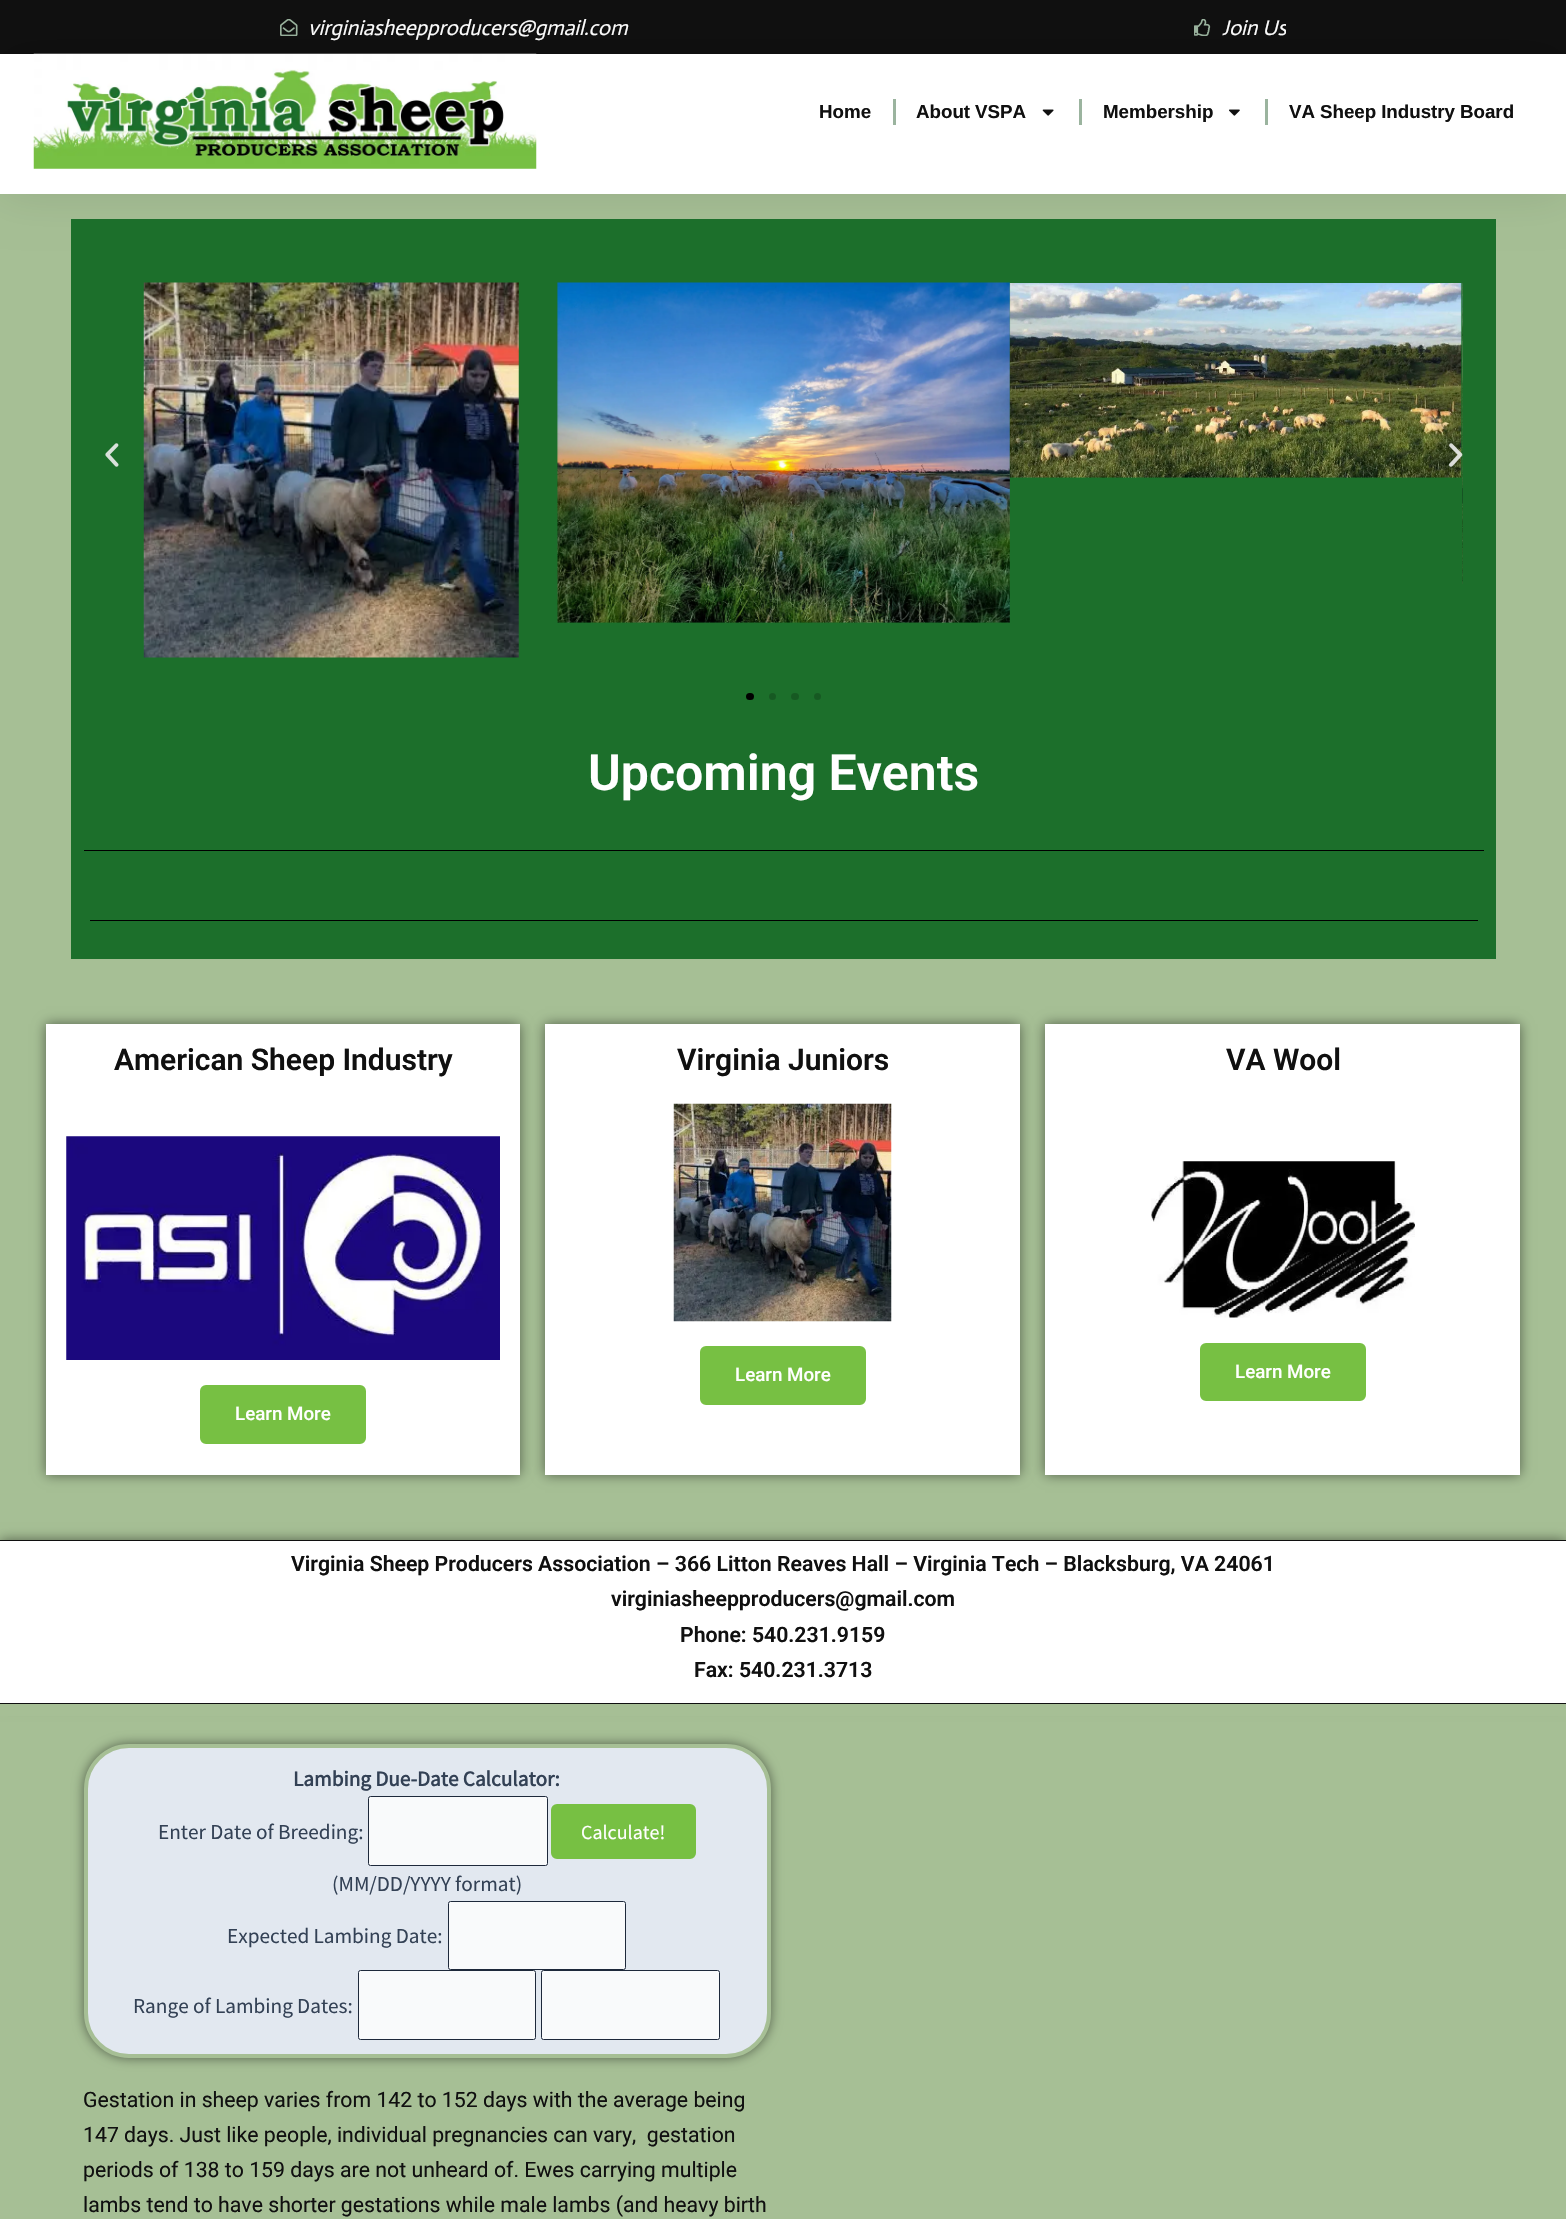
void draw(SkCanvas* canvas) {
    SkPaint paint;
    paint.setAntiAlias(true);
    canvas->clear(0xFFA6BF95);
    paint.setColor(0xFF101010);
    canvas->drawRect(SkRect::MakeXYWH(0, 0, 1566, 54), paint);
    canvas->drawImageRect(SkImages::DeferredFromEncodedData(SkData::MakeFromFileName("img1.png")), SkRect::MakeXYWH(280, 19, 18, 17), SkSamplingOptions());
    SkFont font1(fontMgr->matchFamilyStyle("Actor", SkFontStyle::Italic()), 21.25f);
    font1.setSubpixel(true);
    paint.setColor(0xFFFFFFFF);
    canvas->drawString("virginiasheepproducers@gmail.com", 308, 35, font1, paint);
    canvas->drawImageRect(SkImages::DeferredFromEncodedData(SkData::MakeFromFileName("img2.png")), SkRect::MakeXYWH(1194, 19, 17, 17), SkSamplingOptions());
    canvas->save();
    canvas->clipRect(SkRect::MakeXYWH(796, 10, 490, 35));
    canvas->drawString("Join Us", 1222, 35, font1, paint);
    canvas->restore();
    paint.setColor(0x1A000000);
    paint.setMaskFilter(SkMaskFilter::MakeBlur(kNormal_SkBlurStyle, 24));
    canvas->drawRect(SkRect::MakeXYWH(0, 54, 1566, 140), paint);
    paint.setMaskFilter(nullptr);
    paint.setColor(0xFFFFFFFF);
    canvas->drawRect(SkRect::MakeXYWH(0, 54, 1566, 140), paint);
    canvas->drawImageRect(SkImages::DeferredFromEncodedData(SkData::MakeFromFileName("img3.png")), SkRect::MakeXYWH(33, 53, 504, 116), SkSamplingOptions());
    SkFont font2(fontMgr->matchFamilyStyle("Ramabhadra", SkFontStyle::Normal()), 18.75f);
    font2.setSubpixel(true);
    paint.setColor(0xFF101010);
    canvas->drawString("Home", 819, 118, font2, paint);
    paint.setColor(0xFF9BB49F);
    canvas->drawRect(SkRect::MakeXYWH(893, 99, 3, 26), paint);
    paint.setColor(0xFF101010);
    canvas->drawString("About VSPA", 916, 118, font2, paint);
    canvas->drawImageRect(SkImages::DeferredFromEncodedData(SkData::MakeFromFileName("img4.png")), SkRect::MakeXYWH(1042, 109, 12, 7), SkSamplingOptions());
    paint.setColor(0xFF9BB49F);
    canvas->drawRect(SkRect::MakeXYWH(1079, 99, 3, 26), paint);
    paint.setColor(0xFF101010);
    canvas->drawString("Membership", 1103, 118, font2, paint);
    canvas->drawImageRect(SkImages::DeferredFromEncodedData(SkData::MakeFromFileName("img5.png")), SkRect::MakeXYWH(1229, 109, 11, 7), SkSamplingOptions());
    paint.setColor(0xFF9BB49F);
    canvas->drawRect(SkRect::MakeXYWH(1265, 99, 3, 26), paint);
    paint.setColor(0xFF101010);
    canvas->drawString("VA Sheep Industry Board", 1289, 118, font2, paint);
    paint.setColor(0xFF1C6F2B);
    canvas->drawRect(SkRect::MakeXYWH(71, 219, 1425, 740), paint);
    canvas->drawImageRect(SkImages::DeferredFromEncodedData(SkData::MakeFromFileName("img6.png")), SkRect::MakeXYWH(105, 443, 14, 24), SkSamplingOptions());
    canvas->drawImageRect(SkImages::DeferredFromEncodedData(SkData::MakeFromFileName("img7.png")), SkRect::MakeXYWH(143, 282, 376, 376), SkSamplingOptions());
    canvas->drawImageRect(SkImages::DeferredFromEncodedData(SkData::MakeFromFileName("img8.png")), SkRect::MakeXYWH(557, 282, 453, 341), SkSamplingOptions());
    canvas->drawImageRect(SkImages::DeferredFromEncodedData(SkData::MakeFromFileName("img9.png")), SkRect::MakeXYWH(1009, 283, 453, 195), SkSamplingOptions());
    canvas->drawImageRect(SkImages::DeferredFromEncodedData(SkData::MakeFromFileName("img10.png")), SkRect::MakeXYWH(1462, 283, 1, 301), SkSamplingOptions());
    canvas->drawImageRect(SkImages::DeferredFromEncodedData(SkData::MakeFromFileName("img11.png")), SkRect::MakeXYWH(1449, 443, 14, 24), SkSamplingOptions());
    paint.setColor(0xFF000000);
    canvas->drawRoundRect(SkRect::MakeXYWH(746, 693, 8, 7), 3.5f, 3.5f, paint);
    paint.setColor(0xFF165922);
    canvas->drawCircle(772.5f, 696.5f, 3.5f, paint);
    canvas->drawRoundRect(SkRect::MakeXYWH(791, 693, 8, 7), 3.5f, 3.5f, paint);
    canvas->drawCircle(817.5f, 696.5f, 3.5f, paint);
    SkFont font3(fontMgr->matchFamilyStyle("Roboto", SkFontStyle(600, SkFontStyle::kNormal_Width, SkFontStyle::kUpright_Slant)), 50);
    font3.setSubpixel(true);
    paint.setColor(0xFFFFFFFF);
    canvas->drawString("Upcoming Events", 588, 790, font3, paint);
    paint.setColor(0xFF000000);
    canvas->drawRect(SkRect::MakeXYWH(84, 850, 1400, 1), paint);
    canvas->drawRect(SkRect::MakeXYWH(90, 920, 1388, 1), paint);
    paint.setColor(0x80000000);
    paint.setMaskFilter(SkMaskFilter::MakeBlur(kNormal_SkBlurStyle, 6));
    canvas->drawRect(SkRect::MakeXYWH(46, 1024, 474, 451), paint);
    paint.setMaskFilter(nullptr);
    paint.setColor(0xFFFFFFFF);
    canvas->drawRect(SkRect::MakeXYWH(46, 1024, 474, 451), paint);
    SkFont font4(fontMgr->matchFamilyStyle("Roboto", SkFontStyle(600, SkFontStyle::kNormal_Width, SkFontStyle::kUpright_Slant)), 30);
    font4.setSubpixel(true);
    paint.setColor(0xFF101010);
    canvas->drawString("American Sheep Industry", 114, 1070, font4, paint);
    canvas->drawImageRect(SkImages::DeferredFromEncodedData(SkData::MakeFromFileName("img12.png")), SkRect::MakeXYWH(66, 1136, 434, 224), SkSamplingOptions());
    paint.setColor(0xFF77C043);
    canvas->drawRoundRect(SkRect::MakeXYWH(202.5f, 1387.5f, 161, 54), 3.5f, 3.5f, paint);
    paint.setStyle(SkPaint::kStroke_Style);
    paint.setStrokeWidth(5);
    canvas->drawRoundRect(SkRect::MakeXYWH(202.5f, 1387.5f, 161, 54), 3.5f, 3.5f, paint);
    SkFont font5(fontMgr->matchFamilyStyle("Roboto", SkFontStyle(500, SkFontStyle::kNormal_Width, SkFontStyle::kUpright_Slant)), 18.75f);
    font5.setSubpixel(true);
    paint.setStyle(SkPaint::kFill_Style);
    paint.setColor(0xFFFFFFFF);
    canvas->drawString("Learn More", 235, 1420, font5, paint);
    paint.setColor(0x80000000);
    paint.setMaskFilter(SkMaskFilter::MakeBlur(kNormal_SkBlurStyle, 6));
    canvas->drawRect(SkRect::MakeXYWH(545, 1024, 475, 451), paint);
    paint.setMaskFilter(nullptr);
    paint.setColor(0xFFFFFFFF);
    canvas->drawRect(SkRect::MakeXYWH(545, 1024, 475, 451), paint);
    paint.setColor(0xFF101010);
    canvas->drawString("Virginia Juniors", 677, 1070, font4, paint);
    canvas->drawImageRect(SkImages::DeferredFromEncodedData(SkData::MakeFromFileName("img13.png")), SkRect::MakeXYWH(673, 1103, 219, 219), SkSamplingOptions());
    paint.setColor(0xFF77C043);
    canvas->drawRoundRect(SkRect::MakeXYWH(702.5f, 1348.5f, 161, 54), 3.5f, 3.5f, paint);
    paint.setStyle(SkPaint::kStroke_Style);
    canvas->drawRoundRect(SkRect::MakeXYWH(702.5f, 1348.5f, 161, 54), 3.5f, 3.5f, paint);
    paint.setStyle(SkPaint::kFill_Style);
    paint.setColor(0xFFFFFFFF);
    canvas->drawString("Learn More", 735, 1381, font5, paint);
    paint.setColor(0x80000000);
    paint.setMaskFilter(SkMaskFilter::MakeBlur(kNormal_SkBlurStyle, 6));
    canvas->drawRect(SkRect::MakeXYWH(1045, 1024, 475, 451), paint);
    paint.setMaskFilter(nullptr);
    paint.setColor(0xFFFFFFFF);
    canvas->drawRect(SkRect::MakeXYWH(1045, 1024, 475, 451), paint);
    paint.setColor(0xFF101010);
    canvas->drawString("VA Wool", 1226, 1070, font4, paint);
    canvas->drawImageRect(SkImages::DeferredFromEncodedData(SkData::MakeFromFileName("img14.png")), SkRect::MakeXYWH(1151, 1161, 264, 157), SkSamplingOptions());
    paint.setColor(0xFF77C043);
    canvas->drawRoundRect(SkRect::MakeXYWH(1202.5f, 1345.5f, 161, 53), 3.5f, 3.5f, paint);
    paint.setStyle(SkPaint::kStroke_Style);
    canvas->drawRoundRect(SkRect::MakeXYWH(1202.5f, 1345.5f, 161, 53), 3.5f, 3.5f, paint);
    paint.setStyle(SkPaint::kFill_Style);
    paint.setColor(0xFFFFFFFF);
    canvas->drawString("Learn More", 1235, 1378, font5, paint);
    paint.setColor(0x80000000);
    paint.setMaskFilter(SkMaskFilter::MakeBlur(kNormal_SkBlurStyle, 6));
    canvas->drawRect(SkRect::MakeXYWH(0, 1540, 1566, 164), paint);
    paint.setMaskFilter(nullptr);
    paint.setColor(0xFFFFFFFF);
    canvas->drawRect(SkRect::MakeXYWH(0, 1541, 1566, 162), paint);
    paint.setColor(0xFF101010);
    canvas->drawRect(SkRect::MakeXYWH(0, 1540, 1566, 1), paint);
    canvas->drawRect(SkRect::MakeXYWH(0, 1703, 1566, 1), paint);
    SkFont font6(fontMgr->matchFamilyStyle("Roboto", SkFontStyle(600, SkFontStyle::kNormal_Width, SkFontStyle::kUpright_Slant)), 21.25f);
    font6.setSubpixel(true);
    canvas->drawString("Virginia Sheep Producers Association – 366 Litton Reaves Hall – Virginia Tech – Blacksburg, VA 24061", 291, 1571, font6, paint);
    canvas->drawString("virginiasheepproducers@gmail.com", 611, 1606, font6, paint);
    canvas->drawString("Phone: 540.231.9159", 680, 1642, font6, paint);
    canvas->drawString("Fax: 540.231.3713", 694, 1677, font6, paint);
    paint.setColor(0xFFA6BF95);
    canvas->drawRect(SkRect::MakeXYWH(0, 1704, 1566, 12), paint);
    paint.setColor(0x80000000);
    paint.setMaskFilter(SkMaskFilter::MakeBlur(kNormal_SkBlurStyle, 6));
    canvas->drawRoundRect(SkRect::MakeXYWH(84, 1744, 687, 314), 45, 45, paint);
    paint.setMaskFilter(nullptr);
    paint.setColor(0xFFE2E8F0);
    canvas->drawRoundRect(SkRect::MakeXYWH(86, 1746, 683, 310), 43, 43, paint);
    paint.setStyle(SkPaint::kStroke_Style);
    paint.setStrokeWidth(4);
    paint.setColor(0xFFA6BF95);
    canvas->drawRoundRect(SkRect::MakeXYWH(86, 1746, 683, 310), 43, 43, paint);
    SkFont font7(fontMgr->matchFamilyStyle("Source Sans Pro", SkFontStyle::Bold()), 21.25f);
    font7.setSubpixel(true);
    paint.setStyle(SkPaint::kFill_Style);
    paint.setColor(0xFF334155);
    canvas->drawString("Lambing Due-Date Calculator:", 293, 1786, font7, paint);
    SkFont font8(fontMgr->matchFamilyStyle("Source Sans Pro", SkFontStyle::Normal()), 21.25f);
    font8.setSubpixel(true);
    canvas->drawString("Enter Date of Breeding:", 158, 1839, font8, paint);
    paint.setColor(0xFFF9FAFB);
    canvas->drawRoundRect(SkRect::MakeXYWH(368.5f, 1796.5f, 179, 69), 2, 2, paint);
    paint.setStyle(SkPaint::kStroke_Style);
    paint.setStrokeWidth(1);
    paint.setColor(0xFF1E293B);
    canvas->drawRoundRect(SkRect::MakeXYWH(368.5f, 1796.5f, 179, 69), 2, 2, paint);
    paint.setStyle(SkPaint::kFill_Style);
    paint.setColor(0xFF77C043);
    canvas->drawRoundRect(SkRect::MakeXYWH(553.5f, 1806.5f, 140, 50), 3.5f, 3.5f, paint);
    paint.setStyle(SkPaint::kStroke_Style);
    paint.setStrokeWidth(5);
    canvas->drawRoundRect(SkRect::MakeXYWH(553.5f, 1806.5f, 140, 50), 3.5f, 3.5f, paint);
    SkFont font9(fontMgr->matchFamilyStyle("Source Sans Pro", SkFontStyle::Normal()), 20);
    font9.setSubpixel(true);
    paint.setStyle(SkPaint::kFill_Style);
    paint.setColor(0xFFFFFFFF);
    canvas->drawString("Calculate!", 581, 1839, font9, paint);
    paint.setColor(0xFF334155);
    canvas->drawString("(MM/DD/YYYY format)", 332, 1891, font8, paint);
    canvas->drawString("Expected Lambing Date:", 227, 1943, font8, paint);
    paint.setColor(0xFFF9FAFB);
    canvas->drawRoundRect(SkRect::MakeXYWH(448.5f, 1901.5f, 177, 68), 2, 2, paint);
    paint.setStyle(SkPaint::kStroke_Style);
    paint.setStrokeWidth(1);
    paint.setColor(0xFF1E293B);
    canvas->drawRoundRect(SkRect::MakeXYWH(448.5f, 1901.5f, 177, 68), 2, 2, paint);
    paint.setStyle(SkPaint::kFill_Style);
    paint.setColor(0xFF334155);
    canvas->drawString("Range of Lambing Dates:", 133, 2013, font8, paint);
    paint.setColor(0xFFF9FAFB);
    canvas->drawRoundRect(SkRect::MakeXYWH(358.5f, 1970.5f, 177, 69), 2, 2, paint);
    paint.setStyle(SkPaint::kStroke_Style);
    paint.setColor(0xFF1E293B);
    canvas->drawRoundRect(SkRect::MakeXYWH(358.5f, 1970.5f, 177, 69), 2, 2, paint);
    paint.setStyle(SkPaint::kFill_Style);
    paint.setColor(0xFFF9FAFB);
    canvas->drawRoundRect(SkRect::MakeXYWH(541.5f, 1970.5f, 178, 69), 2, 2, paint);
    paint.setStyle(SkPaint::kStroke_Style);
    paint.setColor(0xFF1E293B);
    canvas->drawRoundRect(SkRect::MakeXYWH(541.5f, 1970.5f, 178, 69), 2, 2, paint);
    SkFont font10(fontMgr->matchFamilyStyle("Roboto", SkFontStyle::Normal()), 21.25f);
    font10.setSubpixel(true);
    paint.setStyle(SkPaint::kFill_Style);
    paint.setColor(0xFF101010);
    canvas->drawString("Gestation in sheep varies from 142 to 152 days with the average being", 83, 2107, font10, paint);
    canvas->drawString("147 days. Just like people, individual pregnancies can vary,  gestation", 83, 2142, font10, paint);
    canvas->drawString("periods of 138 to 159 days are not unheard of. Ewes carrying multiple", 83, 2177, font10, paint);
    canvas->drawString("lambs tend to have shorter gestations while male lambs (and heavy birth", 83, 2212, font10, paint);
}
